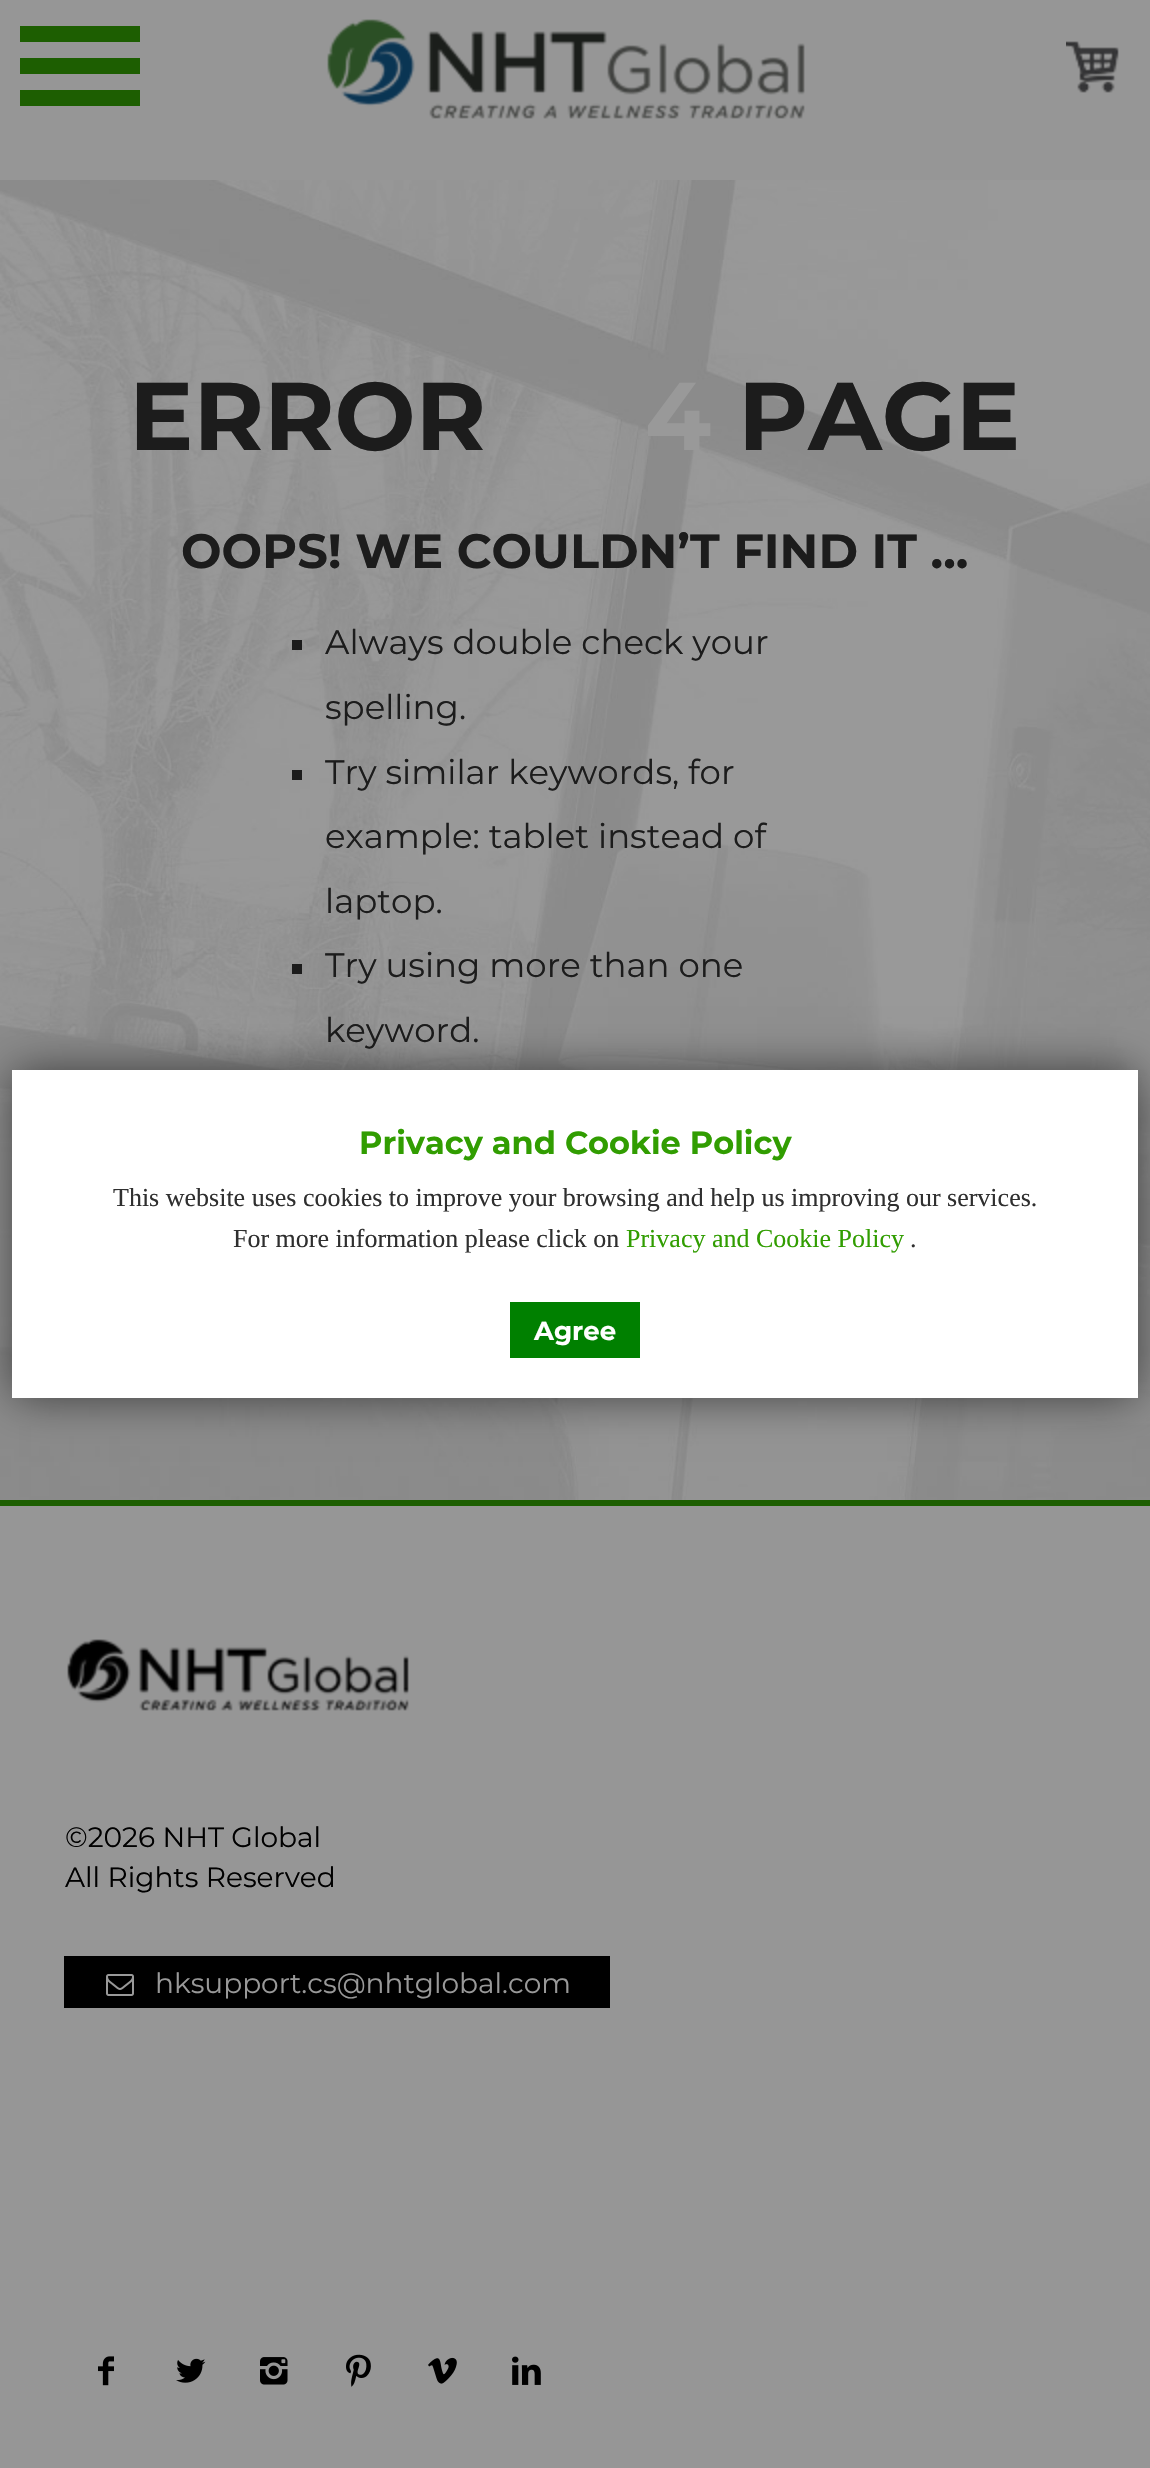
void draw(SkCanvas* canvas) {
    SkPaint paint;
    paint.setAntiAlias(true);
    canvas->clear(0xFF969696);
    paint.setColor(0xFF1D5E01);
    canvas->drawRect(SkRect::MakeXYWH(20, 26, 120, 16), paint);
    canvas->drawRect(SkRect::MakeXYWH(20, 58, 120, 16), paint);
    canvas->drawRect(SkRect::MakeXYWH(20, 90, 120, 16), paint);
    canvas->drawImageRect(SkImages::DeferredFromEncodedData(SkData::MakeFromFileName("img1.png")), SkRect::MakeXYWH(327, 19, 478, 100), SkSamplingOptions());
    canvas->drawImageRect(SkImages::DeferredFromEncodedData(SkData::MakeFromFileName("img2.png")), SkRect::MakeXYWH(1066, 41, 53, 52), SkSamplingOptions());
    canvas->drawImageRect(SkImages::DeferredFromEncodedData(SkData::MakeFromFileName("img3.png")), SkRect::MakeXYWH(0, 180, 1150, 1320), SkSamplingOptions());
    SkFont font1(fontMgr->matchFamilyStyle("Montserrat", SkFontStyle::Bold()), 96);
    font1.setSubpixel(true);
    paint.setColor(0xFF1C1C1C);
    canvas->drawString("ERROR", 129, 450, font1, paint);
    paint.setColor(0xFF999999);
    canvas->drawString("4", 645, 450, font1, paint);
    paint.setColor(0xFF1C1C1C);
    canvas->drawString("PAGE", 738, 450, font1, paint);
    SkFont font2(fontMgr->matchFamilyStyle("Montserrat", SkFontStyle::Bold()), 48);
    font2.setSubpixel(true);
    canvas->drawString("OOPS! WE COULDN’T FIND IT ...", 181, 568, font2, paint);
    canvas->drawRect(SkRect::MakeXYWH(292, 640, 10, 10), paint);
    SkFont font3(fontMgr->matchFamilyStyle("Montserrat", SkFontStyle::Normal()), 34);
    font3.setSubpixel(true);
    canvas->drawString("Always double check your", 325, 654, font3, paint);
    canvas->drawString("spelling.", 325, 719, font3, paint);
    canvas->drawRect(SkRect::MakeXYWH(292, 770, 10, 10), paint);
    canvas->drawString("Try similar keywords, for", 325, 784, font3, paint);
    canvas->drawString("example: tablet instead of", 325, 848, font3, paint);
    canvas->drawString("laptop.", 325, 913, font3, paint);
    canvas->drawRect(SkRect::MakeXYWH(292, 964, 10, 10), paint);
    canvas->drawString("Try using more than one", 325, 977, font3, paint);
    canvas->drawString("keyword.", 325, 1042, font3, paint);
    paint.setColor(0x99000000);
    paint.setMaskFilter(SkMaskFilter::MakeBlur(kNormal_SkBlurStyle, 22));
    canvas->drawRect(SkRect::MakeXYWH(14, 1072, 1122, 324), paint);
    paint.setMaskFilter(nullptr);
    paint.setColor(0xFFFFFFFF);
    canvas->drawRect(SkRect::MakeXYWH(12, 1070, 1126, 328), paint);
    SkFont font4(fontMgr->matchFamilyStyle("Montserrat", SkFontStyle::Bold()), 32);
    font4.setSubpixel(true);
    paint.setColor(0xFF319D01);
    canvas->drawString("Privacy and Cookie Policy", 359, 1154, font4, paint);
    SkFont font5(fontMgr->matchFamilyStyle("Liberation Serif", SkFontStyle::Normal()), 26);
    font5.setSubpixel(true);
    paint.setColor(0xFF2F2F2F);
    canvas->drawString("This website uses cookies to improve your browsing and help us improving our services.", 113, 1206, font5, paint);
    canvas->drawString("For more information please click on", 233, 1247, font5, paint);
    paint.setColor(0xFF319D01);
    canvas->drawString("Privacy and Cookie Policy", 626, 1247, font5, paint);
    paint.setColor(0xFF2F2F2F);
    canvas->drawString(".", 910, 1247, font5, paint);
    paint.setColor(0xFF008000);
    canvas->drawRect(SkRect::MakeXYWH(510, 1302, 130, 56), paint);
    SkFont font6(fontMgr->matchFamilyStyle("Montserrat", SkFontStyle::Bold()), 26);
    font6.setSubpixel(true);
    paint.setColor(0xFFFFFFFF);
    canvas->drawString("Agree", 534, 1340, font6, paint);
    paint.setColor(0xFF1D5E01);
    canvas->drawRect(SkRect::MakeXYWH(0, 1500, 1150, 6), paint);
    canvas->drawImageRect(SkImages::DeferredFromEncodedData(SkData::MakeFromFileName("img4.png")), SkRect::MakeXYWH(67, 1639, 342, 72), SkSamplingOptions());
    SkFont font7(fontMgr->matchFamilyStyle("Montserrat", SkFontStyle::Normal()), 28);
    font7.setSubpixel(true);
    paint.setColor(0xFF000000);
    canvas->drawString("©2026 NHT Global", 65, 1847, font7, paint);
    canvas->drawString("All Rights Reserved", 65, 1887, font7, paint);
    canvas->drawRect(SkRect::MakeXYWH(64, 1956, 546, 52), paint);
    canvas->drawImageRect(SkImages::DeferredFromEncodedData(SkData::MakeFromFileName("img5.png")), SkRect::MakeXYWH(106, 1974, 28, 22), SkSamplingOptions());
    paint.setColor(0xFF999999);
    canvas->drawString("hksupport.cs@nhtglobal.com", 155, 1993, font7, paint);
    canvas->drawImageRect(SkImages::DeferredFromEncodedData(SkData::MakeFromFileName("img6.png")), SkRect::MakeXYWH(98, 2356, 16, 30), SkSamplingOptions());
    canvas->drawImageRect(SkImages::DeferredFromEncodedData(SkData::MakeFromFileName("img7.png")), SkRect::MakeXYWH(176, 2358, 30, 25), SkSamplingOptions());
    canvas->drawImageRect(SkImages::DeferredFromEncodedData(SkData::MakeFromFileName("img8.png")), SkRect::MakeXYWH(260, 2357, 28, 28), SkSamplingOptions());
    canvas->drawImageRect(SkImages::DeferredFromEncodedData(SkData::MakeFromFileName("img9.png")), SkRect::MakeXYWH(346, 2354, 25, 33), SkSamplingOptions());
    canvas->drawImageRect(SkImages::DeferredFromEncodedData(SkData::MakeFromFileName("img10.png")), SkRect::MakeXYWH(428, 2357, 29, 27), SkSamplingOptions());
    canvas->drawImageRect(SkImages::DeferredFromEncodedData(SkData::MakeFromFileName("img11.png")), SkRect::MakeXYWH(512, 2356, 29, 29), SkSamplingOptions());
}
